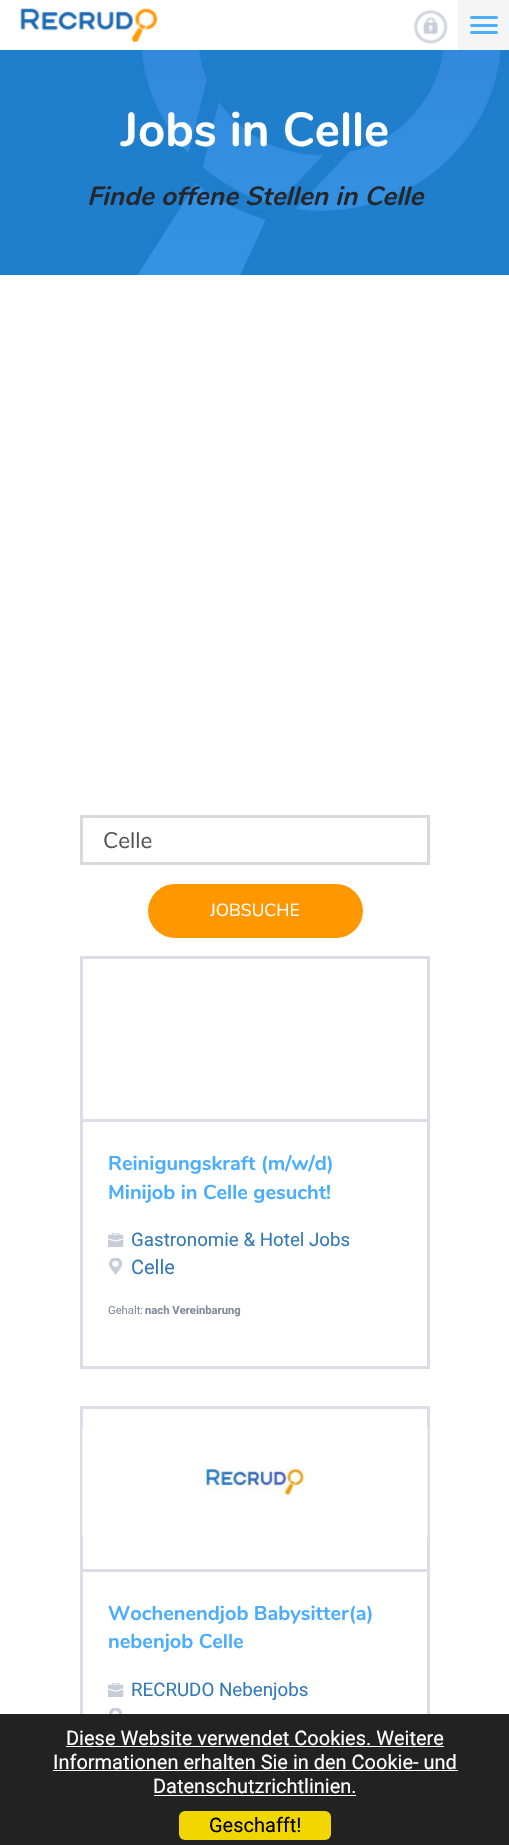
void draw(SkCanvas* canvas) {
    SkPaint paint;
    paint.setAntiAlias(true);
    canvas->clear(0xFFFFFFFF);
    canvas->drawImageRect(SkImages::DeferredFromEncodedData(SkData::MakeFromFileName("img1.png")), SkRect::MakeXYWH(20, 8, 138, 35), SkSamplingOptions());
    canvas->drawImageRect(SkImages::DeferredFromEncodedData(SkData::MakeFromFileName("img2.png")), SkRect::MakeXYWH(413, 9, 35, 36), SkSamplingOptions());
    paint.setColor(0xFFF5F5F5);
    canvas->drawRect(SkRect::MakeXYWH(458, 0, 51, 50), paint);
    paint.setColor(0xFF4BAEFF);
    canvas->drawRoundRect(SkRect::MakeXYWH(470, 16, 28, 3), 1.5f, 1.5f, paint);
    canvas->drawRoundRect(SkRect::MakeXYWH(470, 24, 28, 3), 1.5f, 1.5f, paint);
    canvas->drawRoundRect(SkRect::MakeXYWH(470, 31, 28, 3), 1.5f, 1.5f, paint);
    canvas->drawImageRect(SkImages::DeferredFromEncodedData(SkData::MakeFromFileName("img3.png")), SkRect::MakeXYWH(0, 50, 509, 225), SkSamplingOptions());
    SkFont font1(fontMgr->matchFamilyStyle("Nunito", SkFontStyle::Bold()), 47.5f);
    font1.setSubpixel(true);
    paint.setColor(0xFFFFFFFF);
    canvas->drawString("Jobs in Celle", 121, 146, font1, paint);
    SkFont font2(fontMgr->matchFamilyStyle("Nunito", SkFontStyle::BoldItalic()), 26.25f);
    font2.setSubpixel(true);
    paint.setColor(0xFF24272E);
    canvas->drawString("Finde offene Stellen in Celle", 87, 205, font2, paint);
    paint.setStyle(SkPaint::kStroke_Style);
    paint.setStrokeWidth(3);
    paint.setColor(0xFFDAD8DA);
    canvas->drawRect(SkRect::MakeXYWH(81.5f, 816.5f, 347, 47), paint);
    SkFont font3(fontMgr->matchFamilyStyle("Nunito", SkFontStyle::Normal()), 22.5f);
    font3.setSubpixel(true);
    paint.setStyle(SkPaint::kFill_Style);
    paint.setColor(0xFF555555);
    canvas->drawString("Celle", 103, 848, font3, paint);
    paint.setColor(0xFFFF9800);
    canvas->drawRoundRect(SkRect::MakeXYWH(148, 884, 215, 54), 27, 27, paint);
    SkFont font4(fontMgr->matchFamilyStyle("Nunito", SkFontStyle::Normal()), 17.5f);
    font4.setSubpixel(true);
    paint.setColor(0xFFFFFFFF);
    canvas->drawString("JOBSUCHE", 210, 916, font4, paint);
    paint.setStyle(SkPaint::kStroke_Style);
    paint.setColor(0xFFDBDEE7);
    canvas->drawRect(SkRect::MakeXYWH(81.5f, 957.5f, 347, 410), paint);
    paint.setStyle(SkPaint::kFill_Style);
    canvas->drawRect(SkRect::MakeXYWH(83, 1119, 345, 3), paint);
    SkFont font5(fontMgr->matchFamilyStyle("Nunito", SkFontStyle::Bold()), 20);
    font5.setSubpixel(true);
    paint.setColor(0xFF4AADFF);
    canvas->drawString("Reinigungskraft (m/w/d)", 108, 1170, font5, paint);
    canvas->drawString("Minijob in Celle gesucht!", 108, 1199, font5, paint);
    canvas->drawImageRect(SkImages::DeferredFromEncodedData(SkData::MakeFromFileName("img4.png")), SkRect::MakeXYWH(108, 1233, 16, 14), SkSamplingOptions());
    SkFont font6(fontMgr->matchFamilyStyle("Roboto", SkFontStyle::Normal()), 18.75f);
    font6.setSubpixel(true);
    paint.setColor(0xFF337AB7);
    canvas->drawString("Gastronomie & Hotel Jobs", 131, 1246, font6, paint);
    canvas->drawImageRect(SkImages::DeferredFromEncodedData(SkData::MakeFromFileName("img5.png")), SkRect::MakeXYWH(109, 1258, 13, 17), SkSamplingOptions());
    SkFont font7(fontMgr->matchFamilyStyle("Roboto", SkFontStyle::Normal()), 20);
    font7.setSubpixel(true);
    canvas->drawString("Celle", 131, 1274, font7, paint);
    SkFont font8(fontMgr->matchFamilyStyle("Roboto", SkFontStyle::Normal()), 11.25f);
    font8.setSubpixel(true);
    paint.setColor(0xFF808A9C);
    canvas->drawString("Gehalt:", 108, 1314, font8, paint);
    SkFont font9(fontMgr->matchFamilyStyle("Roboto", SkFontStyle::Bold()), 11.25f);
    font9.setSubpixel(true);
    canvas->drawString("nach Vereinbarung", 145, 1314, font9, paint);
    paint.setStyle(SkPaint::kStroke_Style);
    paint.setColor(0xFFDBDEE7);
    canvas->drawRect(SkRect::MakeXYWH(81.5f, 1407.5f, 347, 410), paint);
    paint.setStyle(SkPaint::kFill_Style);
    canvas->drawRect(SkRect::MakeXYWH(83, 1569, 345, 3), paint);
    canvas->drawImageRect(SkImages::DeferredFromEncodedData(SkData::MakeFromFileName("img6.png")), SkRect::MakeXYWH(82, 1427, 346, 110), SkSamplingOptions());
    paint.setColor(0xFF4AADFF);
    canvas->drawString("Wochenendjob Babysitter(a)", 108, 1620, font5, paint);
    canvas->drawString("nebenjob Celle", 108, 1648, font5, paint);
    canvas->drawImageRect(SkImages::DeferredFromEncodedData(SkData::MakeFromFileName("img4.png")), SkRect::MakeXYWH(108, 1683, 16, 14), SkSamplingOptions());
    paint.setColor(0xFF337AB7);
    canvas->drawString("RECRUDO Nebenjobs", 131, 1696, font6, paint);
    canvas->drawImageRect(SkImages::DeferredFromEncodedData(SkData::MakeFromFileName("img7.png")), SkRect::MakeXYWH(109, 1708, 13, 6), SkSamplingOptions());
    paint.setColor(0xFF222222);
    canvas->drawRect(SkRect::MakeXYWH(0, 1714, 509, 131), paint);
    paint.setColor(0xFFFFFFFF);
    canvas->drawString("Diese Website verwendet Cookies. Weitere", 66, 1745, font7, paint);
    canvas->drawRect(SkRect::MakeXYWH(66, 1746, 378, 1), paint);
    canvas->drawString("Informationen erhalten Sie in den Cookie- und", 53, 1769, font7, paint);
    canvas->drawRect(SkRect::MakeXYWH(53, 1770, 405, 1), paint);
    canvas->drawString("Datenschutzrichtlinien.", 153, 1793, font7, paint);
    canvas->drawRect(SkRect::MakeXYWH(154, 1795, 202, 1), paint);
    paint.setColor(0xFFF1D600);
    canvas->drawRoundRect(SkRect::MakeXYWH(179, 1811, 152, 29), 6, 6, paint);
    paint.setColor(0xFF000000);
    canvas->drawString("Geschafft!", 209, 1832, font7, paint);
}
